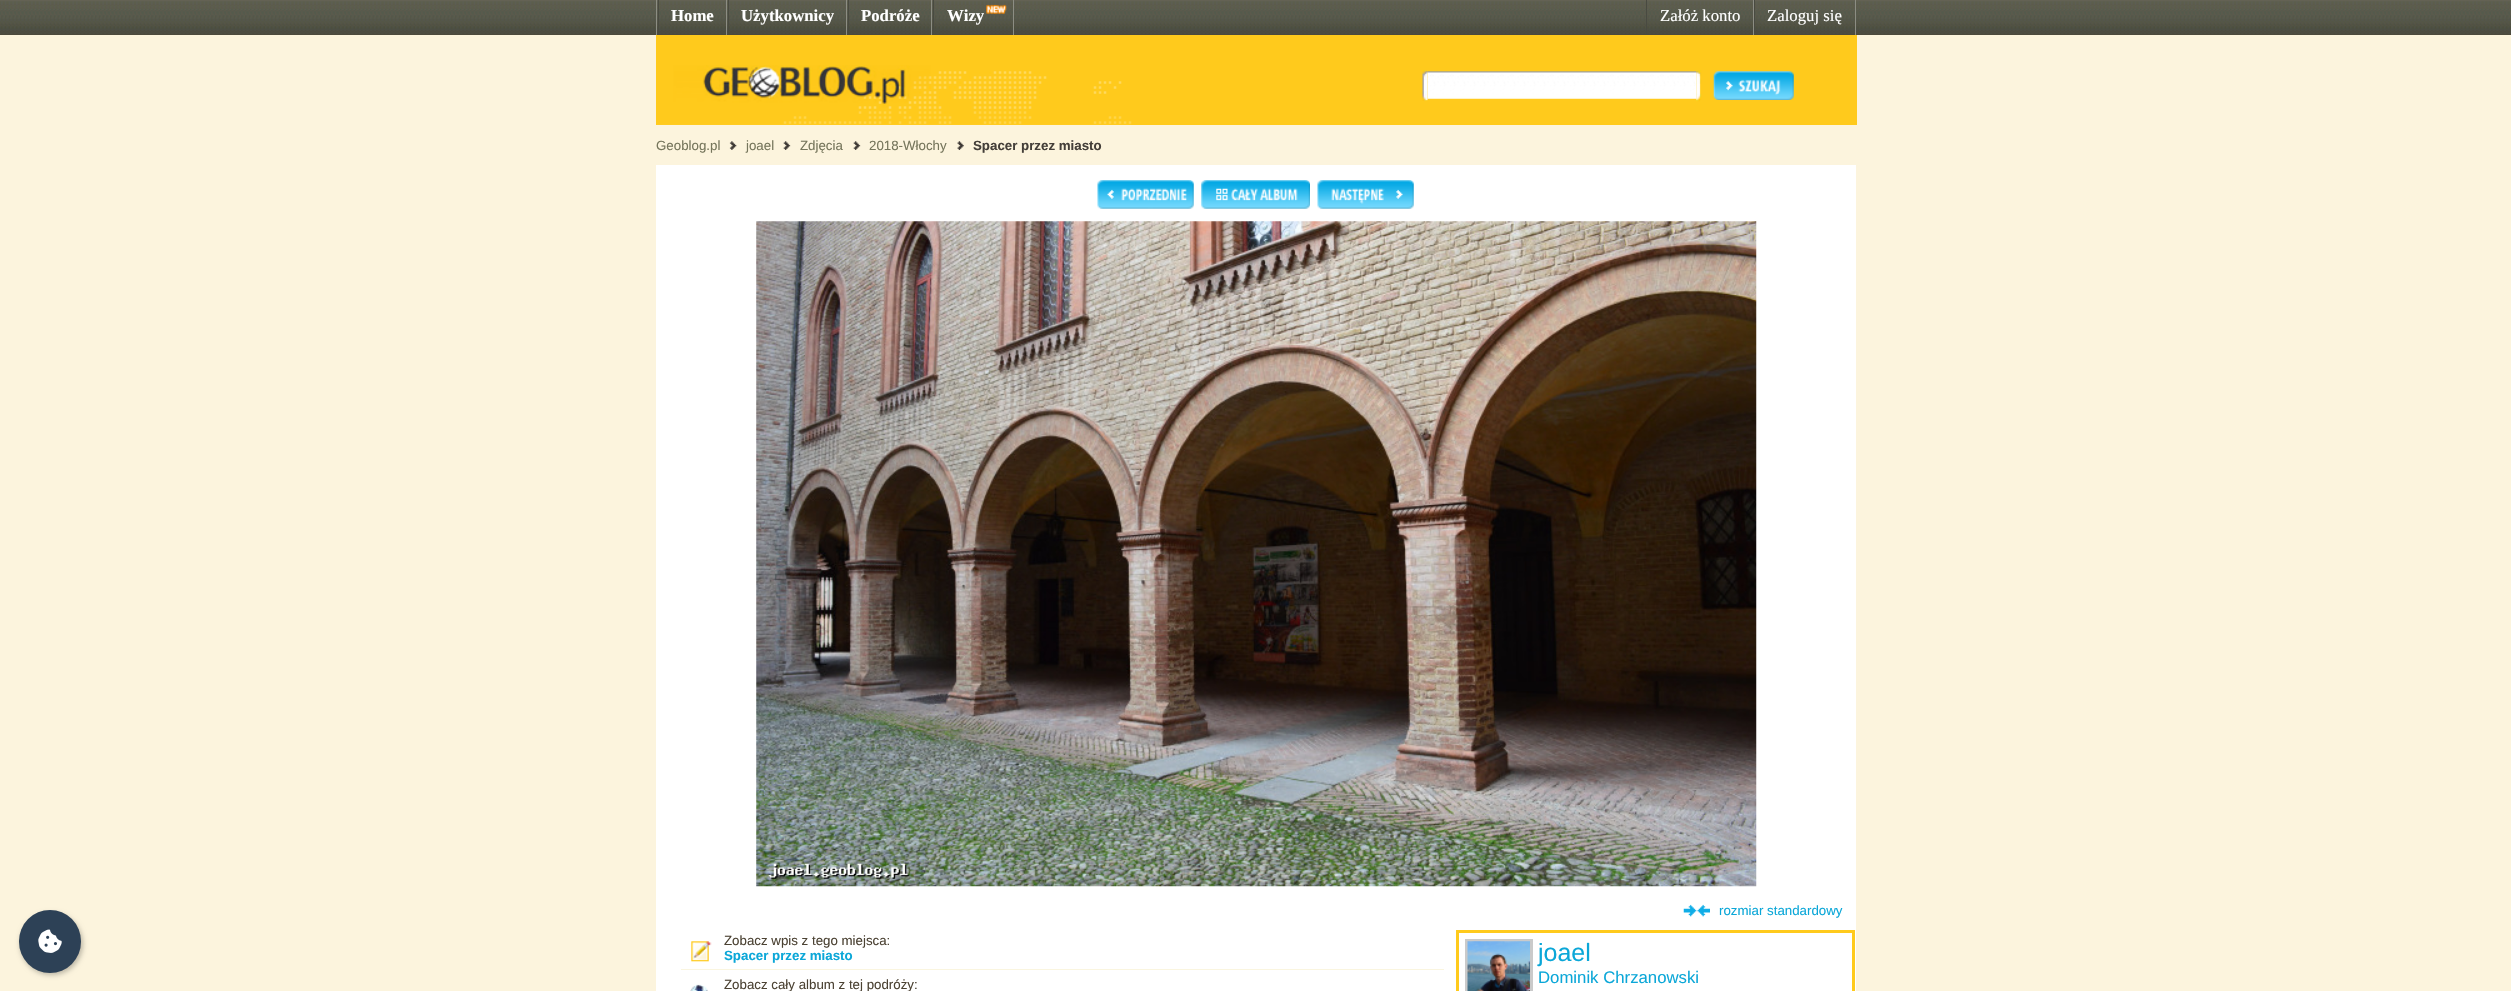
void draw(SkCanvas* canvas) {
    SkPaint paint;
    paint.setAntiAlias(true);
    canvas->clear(0xFFFCF4DD);
    canvas->drawImageRect(SkImages::DeferredFromEncodedData(SkData::MakeFromFileName("img1.png")), SkRect::MakeXYWH(0, 0, 2511, 35), SkSamplingOptions());
    paint.setColor(0x40000000);
    paint.setMaskFilter(SkMaskFilter::MakeBlur(kNormal_SkBlurStyle, 2.5f));
    canvas->drawRoundRect(SkRect::MakeXYWH(20, 913, 63, 62), 31, 31, paint);
    paint.setMaskFilter(nullptr);
    paint.setColor(0xFF2D4156);
    canvas->drawRoundRect(SkRect::MakeXYWH(19, 910, 62, 63), 31, 31, paint);
    canvas->drawImageRect(SkImages::DeferredFromEncodedData(SkData::MakeFromFileName("img2.png")), SkRect::MakeXYWH(38, 929, 24, 24), SkSamplingOptions());
    paint.setColor(0xFF8C8D83);
    canvas->drawRect(SkRect::MakeXYWH(656, 0, 1, 35), paint);
    canvas->drawRect(SkRect::MakeXYWH(726, 0, 1, 35), paint);
    paint.setColor(0xFF494A41);
    canvas->drawRect(SkRect::MakeXYWH(658, 0, 1, 35), paint);
    SkFont font1(fontMgr->matchFamilyStyle("Liberation Serif", SkFontStyle::Bold()), 16.75f);
    font1.setSubpixel(true);
    paint.setColor(0xFFFFFFFF);
    canvas->drawString("Home", 671, 21, font1, paint);
    paint.setColor(0xFF8C8D83);
    canvas->drawRect(SkRect::MakeXYWH(846, 0, 1, 35), paint);
    paint.setColor(0xFF494A41);
    canvas->drawRect(SkRect::MakeXYWH(728, 0, 1, 35), paint);
    paint.setColor(0xFFFFFFFF);
    canvas->drawString("Użytkownicy", 741, 21, font1, paint);
    paint.setColor(0xFF8C8D83);
    canvas->drawRect(SkRect::MakeXYWH(931, 0, 1, 35), paint);
    paint.setColor(0xFF494A41);
    canvas->drawRect(SkRect::MakeXYWH(848, 0, 1, 35), paint);
    paint.setColor(0xFFFFFFFF);
    canvas->drawString("Podróże", 861, 21, font1, paint);
    paint.setColor(0xFF8C8D83);
    canvas->drawRect(SkRect::MakeXYWH(1013, 0, 1, 35), paint);
    paint.setColor(0xFF494A41);
    canvas->drawRect(SkRect::MakeXYWH(933, 0, 1, 35), paint);
    paint.setColor(0xFFFFFFFF);
    canvas->drawString("Wizy", 947, 21, font1, paint);
    canvas->drawImageRect(SkImages::DeferredFromEncodedData(SkData::MakeFromFileName("img3.png")), SkRect::MakeXYWH(986, 4, 21, 10), SkSamplingOptions());
    paint.setColor(0xFF8C8D83);
    canvas->drawRect(SkRect::MakeXYWH(1753, 0, 1, 35), paint);
    paint.setColor(0xFF494A41);
    canvas->drawRect(SkRect::MakeXYWH(1646, 0, 1, 35), paint);
    SkFont font2(fontMgr->matchFamilyStyle("Liberation Serif", SkFontStyle::Normal()), 16.75f);
    font2.setSubpixel(true);
    paint.setColor(0xFFFFFFFF);
    canvas->drawString("Załóż konto", 1660, 21, font2, paint);
    paint.setColor(0xFF8C8D83);
    canvas->drawRect(SkRect::MakeXYWH(1855, 0, 1, 35), paint);
    paint.setColor(0xFF494A41);
    canvas->drawRect(SkRect::MakeXYWH(1754, 0, 1, 35), paint);
    paint.setColor(0xFFFFFFFF);
    canvas->drawString("Zaloguj się", 1767, 21, font2, paint);
    paint.setColor(0xFFFFCA1C);
    canvas->drawRect(SkRect::MakeXYWH(656, 35, 1201, 90), paint);
    canvas->drawImageRect(SkImages::DeferredFromEncodedData(SkData::MakeFromFileName("img4.png")), SkRect::MakeXYWH(657, 65, 475, 60), SkSamplingOptions());
    canvas->drawImageRect(SkImages::DeferredFromEncodedData(SkData::MakeFromFileName("img5.png")), SkRect::MakeXYWH(1422, 70, 6, 31), SkSamplingOptions());
    canvas->drawImageRect(SkImages::DeferredFromEncodedData(SkData::MakeFromFileName("img6.png")), SkRect::MakeXYWH(1427, 70, 270, 29), SkSamplingOptions());
    canvas->drawImageRect(SkImages::DeferredFromEncodedData(SkData::MakeFromFileName("img7.png")), SkRect::MakeXYWH(1696, 70, 6, 32), SkSamplingOptions());
    canvas->drawImageRect(SkImages::DeferredFromEncodedData(SkData::MakeFromFileName("img8.png")), SkRect::MakeXYWH(1713, 71, 81, 29), SkSamplingOptions());
    SkFont font3(fontMgr->matchFamilyStyle("Liberation Sans", SkFontStyle::Normal()), 13.3f);
    font3.setSubpixel(true);
    paint.setColor(0xFF76765C);
    canvas->drawString("Geoblog.pl", 656, 150, font3, paint);
    canvas->drawImageRect(SkImages::DeferredFromEncodedData(SkData::MakeFromFileName("img9.png")), SkRect::MakeXYWH(729, 141, 8, 9), SkSamplingOptions());
    canvas->drawString("joael", 746, 150, font3, paint);
    canvas->drawImageRect(SkImages::DeferredFromEncodedData(SkData::MakeFromFileName("img10.png")), SkRect::MakeXYWH(783, 141, 8, 9), SkSamplingOptions());
    canvas->drawString("Zdjęcia", 800, 150, font3, paint);
    canvas->drawImageRect(SkImages::DeferredFromEncodedData(SkData::MakeFromFileName("img11.png")), SkRect::MakeXYWH(853, 141, 8, 9), SkSamplingOptions());
    canvas->drawString("2018-Włochy", 869, 150, font3, paint);
    canvas->drawImageRect(SkImages::DeferredFromEncodedData(SkData::MakeFromFileName("img12.png")), SkRect::MakeXYWH(957, 141, 7, 9), SkSamplingOptions());
    SkFont font4(fontMgr->matchFamilyStyle("Liberation Sans", SkFontStyle::Bold()), 13.3f);
    font4.setSubpixel(true);
    paint.setColor(0xFF443F39);
    canvas->drawString("Spacer przez miasto", 973, 150, font4, paint);
    paint.setColor(0xFFFFFFFF);
    canvas->drawRect(SkRect::MakeXYWH(656, 165, 1200, 826), paint);
    canvas->drawImageRect(SkImages::DeferredFromEncodedData(SkData::MakeFromFileName("img13.png")), SkRect::MakeXYWH(1097, 180, 97, 29), SkSamplingOptions());
    canvas->drawImageRect(SkImages::DeferredFromEncodedData(SkData::MakeFromFileName("img14.png")), SkRect::MakeXYWH(1201, 180, 109, 29), SkSamplingOptions());
    canvas->drawImageRect(SkImages::DeferredFromEncodedData(SkData::MakeFromFileName("img15.png")), SkRect::MakeXYWH(1317, 180, 97, 29), SkSamplingOptions());
    canvas->drawImageRect(SkImages::DeferredFromEncodedData(SkData::MakeFromFileName("img16.png")), SkRect::MakeXYWH(756, 221, 1001, 666), SkSamplingOptions());
    canvas->drawImageRect(SkImages::DeferredFromEncodedData(SkData::MakeFromFileName("img17.png")), SkRect::MakeXYWH(1683, 904, 27, 13), SkSamplingOptions());
    paint.setColor(0xFF0BA7D8);
    canvas->drawString("rozmiar standardowy", 1719, 915, font3, paint);
    paint.setColor(0xFFFAF5DF);
    canvas->drawRect(SkRect::MakeXYWH(681, 969, 763, 1), paint);
    canvas->drawImageRect(SkImages::DeferredFromEncodedData(SkData::MakeFromFileName("img18.png")), SkRect::MakeXYWH(691, 941, 21, 21), SkSamplingOptions());
    paint.setColor(0xFF4B4233);
    canvas->drawString("Zobacz wpis z tego miejsca:", 724, 945, font3, paint);
    paint.setColor(0xFF0BA7D8);
    canvas->drawString("Spacer przez miasto", 724, 960, font4, paint);
    canvas->drawImageRect(SkImages::DeferredFromEncodedData(SkData::MakeFromFileName("img19.png")), SkRect::MakeXYWH(690, 984, 18, 7), SkSamplingOptions());
    paint.setColor(0xFF4B4233);
    canvas->drawString("Zobacz cały album z tej podróży:", 724, 989, font3, paint);
    paint.setStyle(SkPaint::kStroke_Style);
    paint.setStrokeWidth(3);
    paint.setColor(0xFFFFCA1C);
    canvas->drawRect(SkRect::MakeXYWH(1457.5f, 931.5f, 396, 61), paint);
    paint.setColor(0xFFCACACA);
    canvas->drawRect(SkRect::MakeXYWH(1466.5f, 940.5f, 65, 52), paint);
    canvas->drawImageRect(SkImages::DeferredFromEncodedData(SkData::MakeFromFileName("img20.png")), SkRect::MakeXYWH(1467, 941, 63, 50), SkSamplingOptions());
    SkFont font5(fontMgr->matchFamilyStyle("Liberation Sans", SkFontStyle::Normal()), 25);
    font5.setSubpixel(true);
    paint.setStyle(SkPaint::kFill_Style);
    paint.setColor(0xFF0BA7D8);
    canvas->drawString("joael", 1538, 961, font5, paint);
    SkFont font6(fontMgr->matchFamilyStyle("Liberation Sans", SkFontStyle::Normal()), 16.75f);
    font6.setSubpixel(true);
    canvas->drawString("Dominik Chrzanowski", 1538, 983, font6, paint);
}
